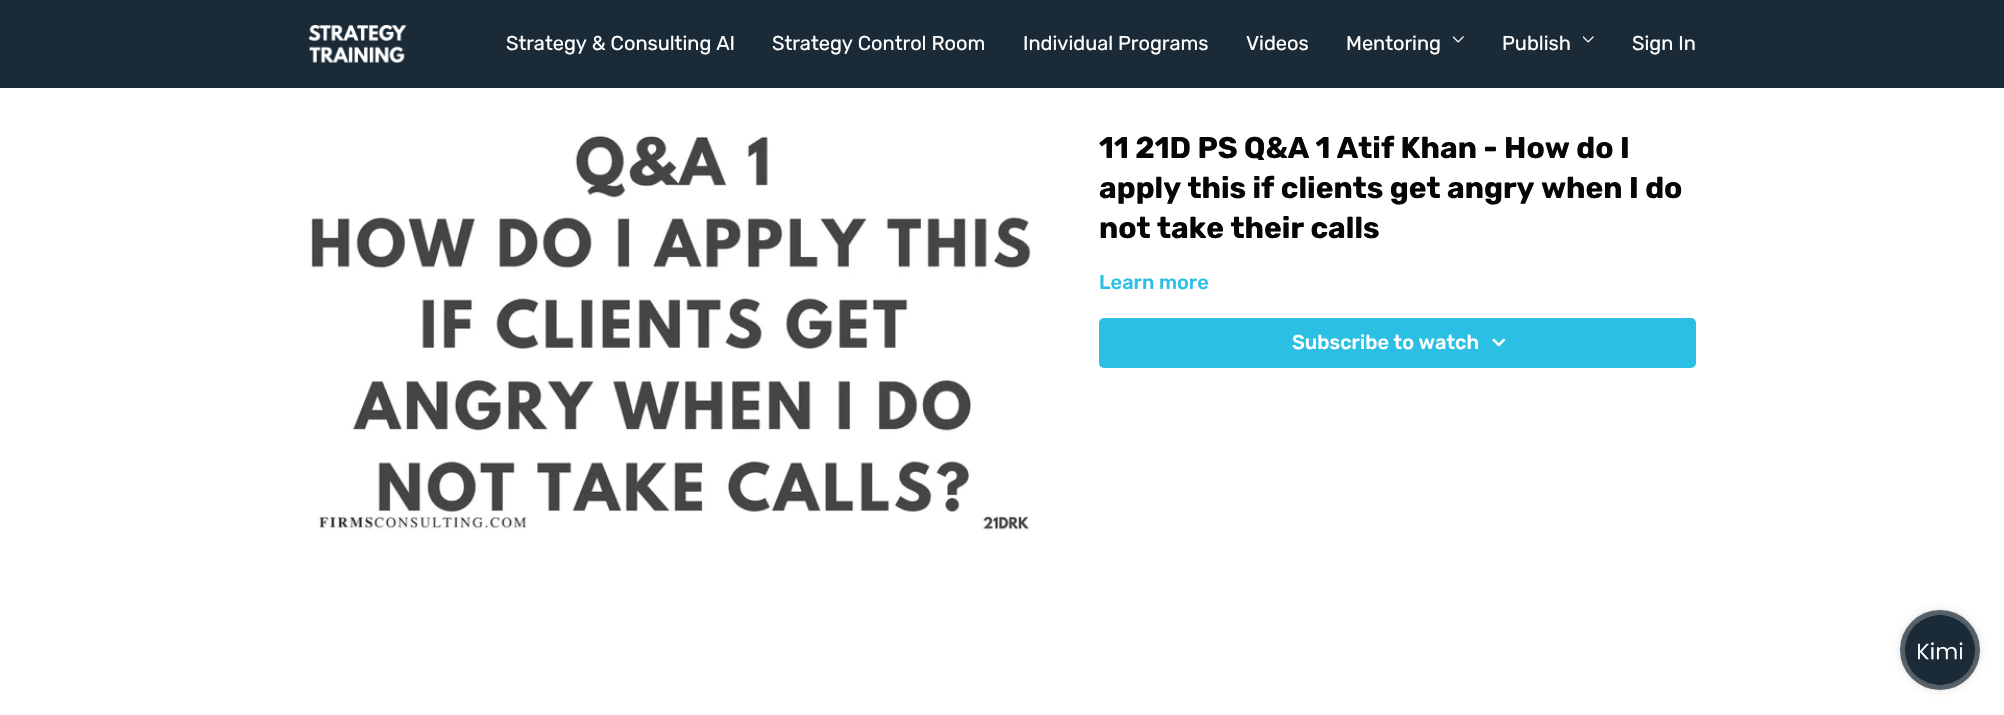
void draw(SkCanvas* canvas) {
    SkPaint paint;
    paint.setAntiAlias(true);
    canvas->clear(0xFFFFFFFF);
    paint.setColor(0xFF1A2A36);
    canvas->drawRect(SkRect::MakeXYWH(0, 0, 2004, 88), paint);
    canvas->drawImageRect(SkImages::DeferredFromEncodedData(SkData::MakeFromFileName("img1.png")), SkRect::MakeXYWH(308, 25, 99, 38), SkSamplingOptions());
    SkFont font1(fontMgr->matchFamilyStyle("Rubik", SkFontStyle::Normal()), 20);
    font1.setSubpixel(true);
    paint.setColor(0xFFFFFFFF);
    canvas->drawString("Strategy & Consulting AI", 506, 50, font1, paint);
    canvas->drawString("Strategy Control Room", 772, 50, font1, paint);
    canvas->drawString("Individual Programs", 1023, 50, font1, paint);
    canvas->drawString("Videos", 1246, 50, font1, paint);
    canvas->drawString("Mentoring", 1346, 50, font1, paint);
    canvas->drawImageRect(SkImages::DeferredFromEncodedData(SkData::MakeFromFileName("img2.png")), SkRect::MakeXYWH(1453, 36, 11, 7), SkSamplingOptions());
    canvas->drawString("Publish", 1502, 50, font1, paint);
    canvas->drawImageRect(SkImages::DeferredFromEncodedData(SkData::MakeFromFileName("img2.png")), SkRect::MakeXYWH(1583, 36, 11, 7), SkSamplingOptions());
    canvas->drawString("Sign In", 1632, 50, font1, paint);
    canvas->drawImageRect(SkImages::DeferredFromEncodedData(SkData::MakeFromFileName("img3.png")), SkRect::MakeXYWH(311, 135, 720, 396), SkSamplingOptions());
    SkFont font2(fontMgr->matchFamilyStyle("Rubik", SkFontStyle::Bold()), 30);
    font2.setSubpixel(true);
    paint.setColor(0xFF060606);
    canvas->drawString("11 21D PS Q&A 1 Atif Khan - How do I", 1099, 158, font2, paint);
    canvas->drawString("apply this if clients get angry when I do", 1099, 198, font2, paint);
    canvas->drawString("not take their calls", 1099, 238, font2, paint);
    SkFont font3(fontMgr->matchFamilyStyle("Rubik", SkFontStyle(500, SkFontStyle::kNormal_Width, SkFontStyle::kUpright_Slant)), 20);
    font3.setSubpixel(true);
    paint.setColor(0xFF2BC0E3);
    canvas->drawString("Learn more", 1099, 289, font3, paint);
    canvas->drawRoundRect(SkRect::MakeXYWH(1099, 318, 597, 50), 5, 5, paint);
    paint.setColor(0xFFFFFFFF);
    canvas->drawString("Subscribe to watch", 1292, 349, font3, paint);
    canvas->drawImageRect(SkImages::DeferredFromEncodedData(SkData::MakeFromFileName("img4.png")), SkRect::MakeXYWH(1492, 338, 13, 9), SkSamplingOptions());
    paint.setColor(0x66000000);
    paint.setMaskFilter(SkMaskFilter::MakeBlur(kNormal_SkBlurStyle, 6));
    canvas->drawRoundRect(SkRect::MakeXYWH(1905, 615, 70, 70), 35, 35, paint);
    paint.setMaskFilter(nullptr);
    paint.setColor(0xFF1A2A36);
    canvas->drawCircle(1940, 650, 35, paint);
    canvas->drawImageRect(SkImages::DeferredFromEncodedData(SkData::MakeFromFileName("img5.png")), SkRect::MakeXYWH(1905, 615, 70, 70), SkSamplingOptions());
    paint.setStyle(SkPaint::kStroke_Style);
    paint.setStrokeWidth(5);
    paint.setColor(0xB31A2A36);
    canvas->drawCircle(1940, 650, 37.5f, paint);
}
